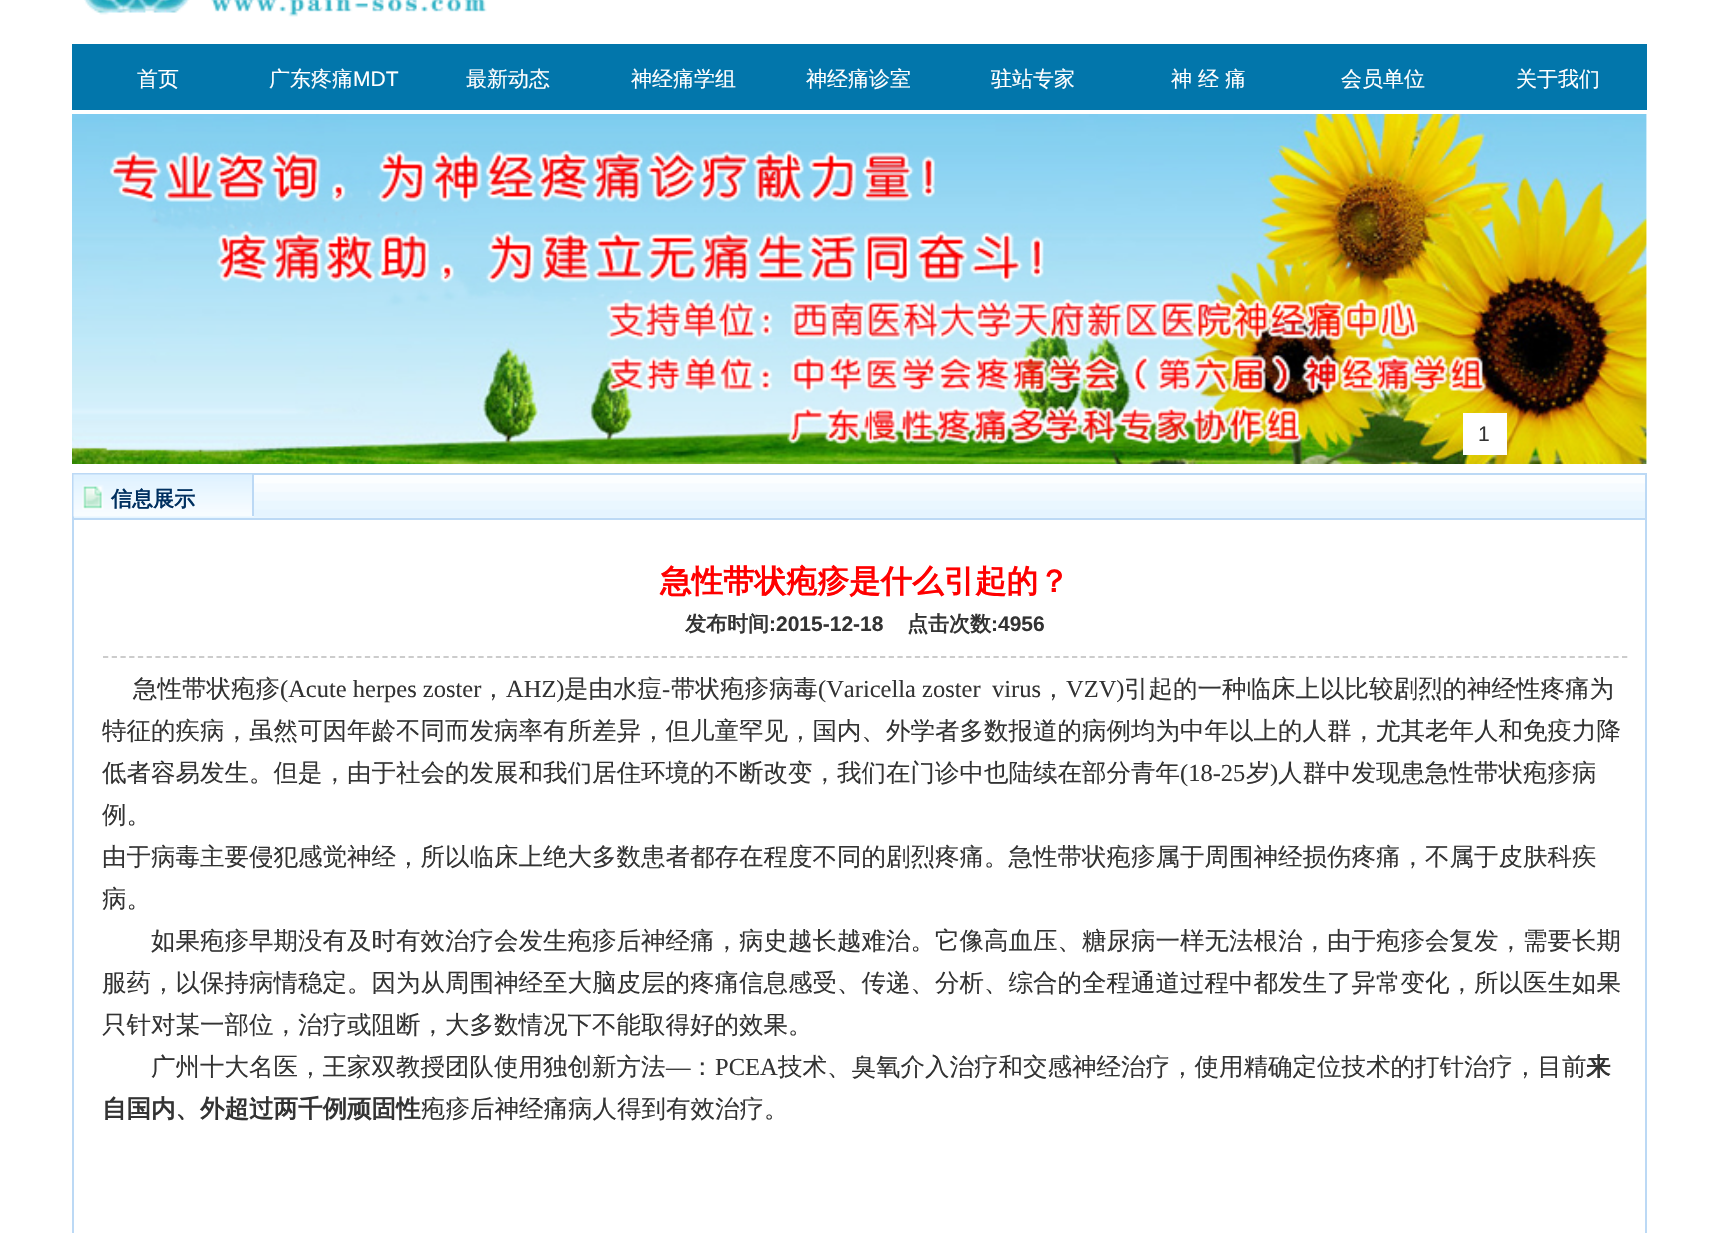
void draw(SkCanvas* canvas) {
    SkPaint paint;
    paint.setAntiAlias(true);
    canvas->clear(0xFFFFFFFF);
    canvas->drawImageRect(SkImages::DeferredFromEncodedData(SkData::MakeFromFileName("img1.png")), SkRect::MakeXYWH(84, 0, 403, 17), SkSamplingOptions());
    paint.setColor(0xFF0276AB);
    canvas->drawRect(SkRect::MakeXYWH(72, 44, 1575, 66), paint);
    SkFont font1(fontMgr->matchFamilyStyle("WenQuanYi Zen Hei", SkFontStyle(500, SkFontStyle::kNormal_Width, SkFontStyle::kUpright_Slant)), 21);
    font1.setSubpixel(true);
    paint.setColor(0xFFFFFFFF);
    canvas->drawString("首页", 137, 86, font1, paint);
    canvas->drawString("广东疼痛", 269, 86, font1, paint);
    SkFont font2(fontMgr->matchFamilyStyle("Liberation Sans", SkFontStyle::Normal()), 21);
    font2.setSubpixel(true);
    canvas->drawString("MDT", 353, 86, font2, paint);
    canvas->drawString("最新动态", 466, 86, font1, paint);
    canvas->drawString("神经痛学组", 631, 86, font1, paint);
    canvas->drawString("神经痛诊室", 806, 86, font1, paint);
    canvas->drawString("驻站专家", 991, 86, font1, paint);
    canvas->drawString("神", 1171, 86, font1, paint);
    canvas->drawString("经", 1198, 86, font1, paint);
    canvas->drawString("痛", 1225, 86, font1, paint);
    canvas->drawString("会员单位", 1341, 86, font1, paint);
    canvas->drawString("关于我们", 1516, 86, font1, paint);
    canvas->drawImageRect(SkImages::DeferredFromEncodedData(SkData::MakeFromFileName("img2.png")), SkRect::MakeXYWH(72, 114, 1575, 350), SkSamplingOptions());
    canvas->drawRect(SkRect::MakeXYWH(1463, 413, 44, 42), paint);
    paint.setColor(0xFF333333);
    canvas->drawString("1", 1478, 441, font2, paint);
    canvas->drawImageRect(SkImages::DeferredFromEncodedData(SkData::MakeFromFileName("img3.png")), SkRect::MakeXYWH(74, 475, 1571, 43), SkSamplingOptions());
    paint.setColor(0xFFBCD9F5);
    canvas->drawRect(SkRect::MakeXYWH(72, 473, 1575, 2), paint);
    canvas->drawRect(SkRect::MakeXYWH(1645, 473, 2, 45), paint);
    canvas->drawRect(SkRect::MakeXYWH(72, 473, 2, 45), paint);
    canvas->drawImageRect(SkImages::DeferredFromEncodedData(SkData::MakeFromFileName("img4.png")), SkRect::MakeXYWH(73, 474, 181, 43), SkSamplingOptions());
    canvas->drawRect(SkRect::MakeXYWH(252, 474, 2, 42), paint);
    SkFont font3(fontMgr->matchFamilyStyle("WenQuanYi Zen Hei", SkFontStyle::Bold()), 21);
    font3.setSubpixel(true);
    paint.setColor(0xFF003060);
    canvas->drawString("信息展示", 111, 506, font3, paint);
    paint.setStyle(SkPaint::kStroke_Style);
    paint.setStrokeWidth(2);
    paint.setColor(0xFFBCD9F5);
    canvas->drawRect(SkRect::MakeXYWH(73, 519, 1573, 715), paint);
    SkFont font4(fontMgr->matchFamilyStyle("WenQuanYi Zen Hei", SkFontStyle::Bold()), 31.5f);
    font4.setSubpixel(true);
    paint.setStyle(SkPaint::kFill_Style);
    paint.setColor(0xFFFF0000);
    canvas->drawString("急性带状疱疹是什么引起的？", 660, 592, font4, paint);
    paint.setColor(0xFF333333);
    canvas->drawString("发布时间", 685, 631, font3, paint);
    SkFont font5(fontMgr->matchFamilyStyle("Liberation Sans", SkFontStyle::Bold()), 21);
    font5.setSubpixel(true);
    canvas->drawString(":2015-12-18", 769, 631, font5, paint);
    canvas->drawString("点击次数", 907, 631, font3, paint);
    canvas->drawString(":4956", 991, 631, font5, paint);
    paint.setStyle(SkPaint::kStroke_Style);
    paint.setStrokeWidth(1.8f);
    paint.setColor(0xFFCCCCCC);
    paint.setPathEffect(SkDashPathEffect::Make({{5.25f, 3.48f}}, 0));
    canvas->drawPath(SkPathBuilder().moveTo(103, 657).lineTo(1627.5f, 657).detach(), paint);
    paint.setPathEffect(nullptr);
    SkFont font6(fontMgr->matchFamilyStyle("WenQuanYi Zen Hei", SkFontStyle(500, SkFontStyle::kNormal_Width, SkFontStyle::kUpright_Slant)), 24.5f);
    font6.setSubpixel(true);
    paint.setStyle(SkPaint::kFill_Style);
    paint.setColor(0xFF333333);
    canvas->drawString("急性带状疱疹", 133, 697, font6, paint);
    SkFont font7(fontMgr->matchFamilyStyle("Liberation Serif", SkFontStyle::Normal()), 24.5f);
    font7.setSubpixel(true);
    canvas->drawString("(Acute herpes zoster", 280, 697, font7, paint);
    canvas->drawString("AHZ)", 506, 697, font7, paint);
    canvas->drawString("是由水痘", 564, 697, font6, paint);
    canvas->drawString("-", 662, 697, font7, paint);
    canvas->drawString("带状疱疹病毒", 671, 697, font6, paint);
    canvas->drawString("(Varicella zoster", 818, 697, font7, paint);
    canvas->drawString("virus", 992, 697, font7, paint);
    canvas->drawString("VZV)", 1066, 697, font7, paint);
    canvas->drawString("引起的一种临床上以比较剧烈的神经性疼痛为", 1124, 697, font6, paint);
    canvas->drawString("，", 481, 697, font6, paint);
    canvas->drawString("，", 1041, 697, font6, paint);
    canvas->drawString("特征的疾病，虽然可因年龄不同而发病率有所差异，但儿童罕见，国内、外学者多数报道的病例均为中年以上的人群，尤其老年人和免疫力降", 102, 739, font6, paint);
    canvas->drawString("低者容易发生。但是，由于社会的发展和我们居住环境的不断改变，我们在门诊中也陆续在部分青年", 102, 781, font6, paint);
    canvas->drawString("(18-25", 1180, 781, font7, paint);
    canvas->drawString("岁", 1246, 781, font6, paint);
    canvas->drawString(")", 1270, 781, font7, paint);
    canvas->drawString("人群中发现患急性带状疱疹病", 1278, 781, font6, paint);
    canvas->drawString("例。", 102, 823, font6, paint);
    canvas->drawString("由于病毒主要侵犯感觉神经，所以临床上绝大多数患者都存在程度不同的剧烈疼痛。急性带状疱疹属于周围神经损伤疼痛，不属于皮肤科疾", 102, 865, font6, paint);
    canvas->drawString("病。", 102, 907, font6, paint);
    canvas->drawString("如果疱疹早期没有及时有效治疗会发生疱疹后神经痛，病史越长越难治。它像高血压、糖尿病一样无法根治，由于疱疹会复发，需要长期", 151, 949, font6, paint);
    canvas->drawString("服药，以保持病情稳定。因为从周围神经至大脑皮层的疼痛信息感受、传递、分析、综合的全程通道过程中都发生了异常变化，所以医生如果", 102, 991, font6, paint);
    canvas->drawString("只针对某一部位，治疗或阻断，大多数情况下不能取得好的效果。", 102, 1033, font6, paint);
    canvas->drawString("广州十大名医，王家双教授团队使用独创新方法", 151, 1075, font6, paint);
    canvas->drawString("—", 666, 1075, font7, paint);
    canvas->drawString("：", 690, 1075, font6, paint);
    canvas->drawString("PCEA", 715, 1075, font7, paint);
    canvas->drawString("技术、臭氧介入治疗和交感神经治疗，使用精确定位技术的打针治疗，目前", 778, 1075, font6, paint);
    SkFont font8(fontMgr->matchFamilyStyle("WenQuanYi Zen Hei", SkFontStyle::Bold()), 24.5f);
    font8.setSubpixel(true);
    canvas->drawString("来", 1586, 1075, font8, paint);
    canvas->drawString("自国内、外超过两千例顽固性", 102, 1117, font8, paint);
    canvas->drawString("疱疹后神经痛病人得到有效治疗。", 421, 1117, font6, paint);
}
